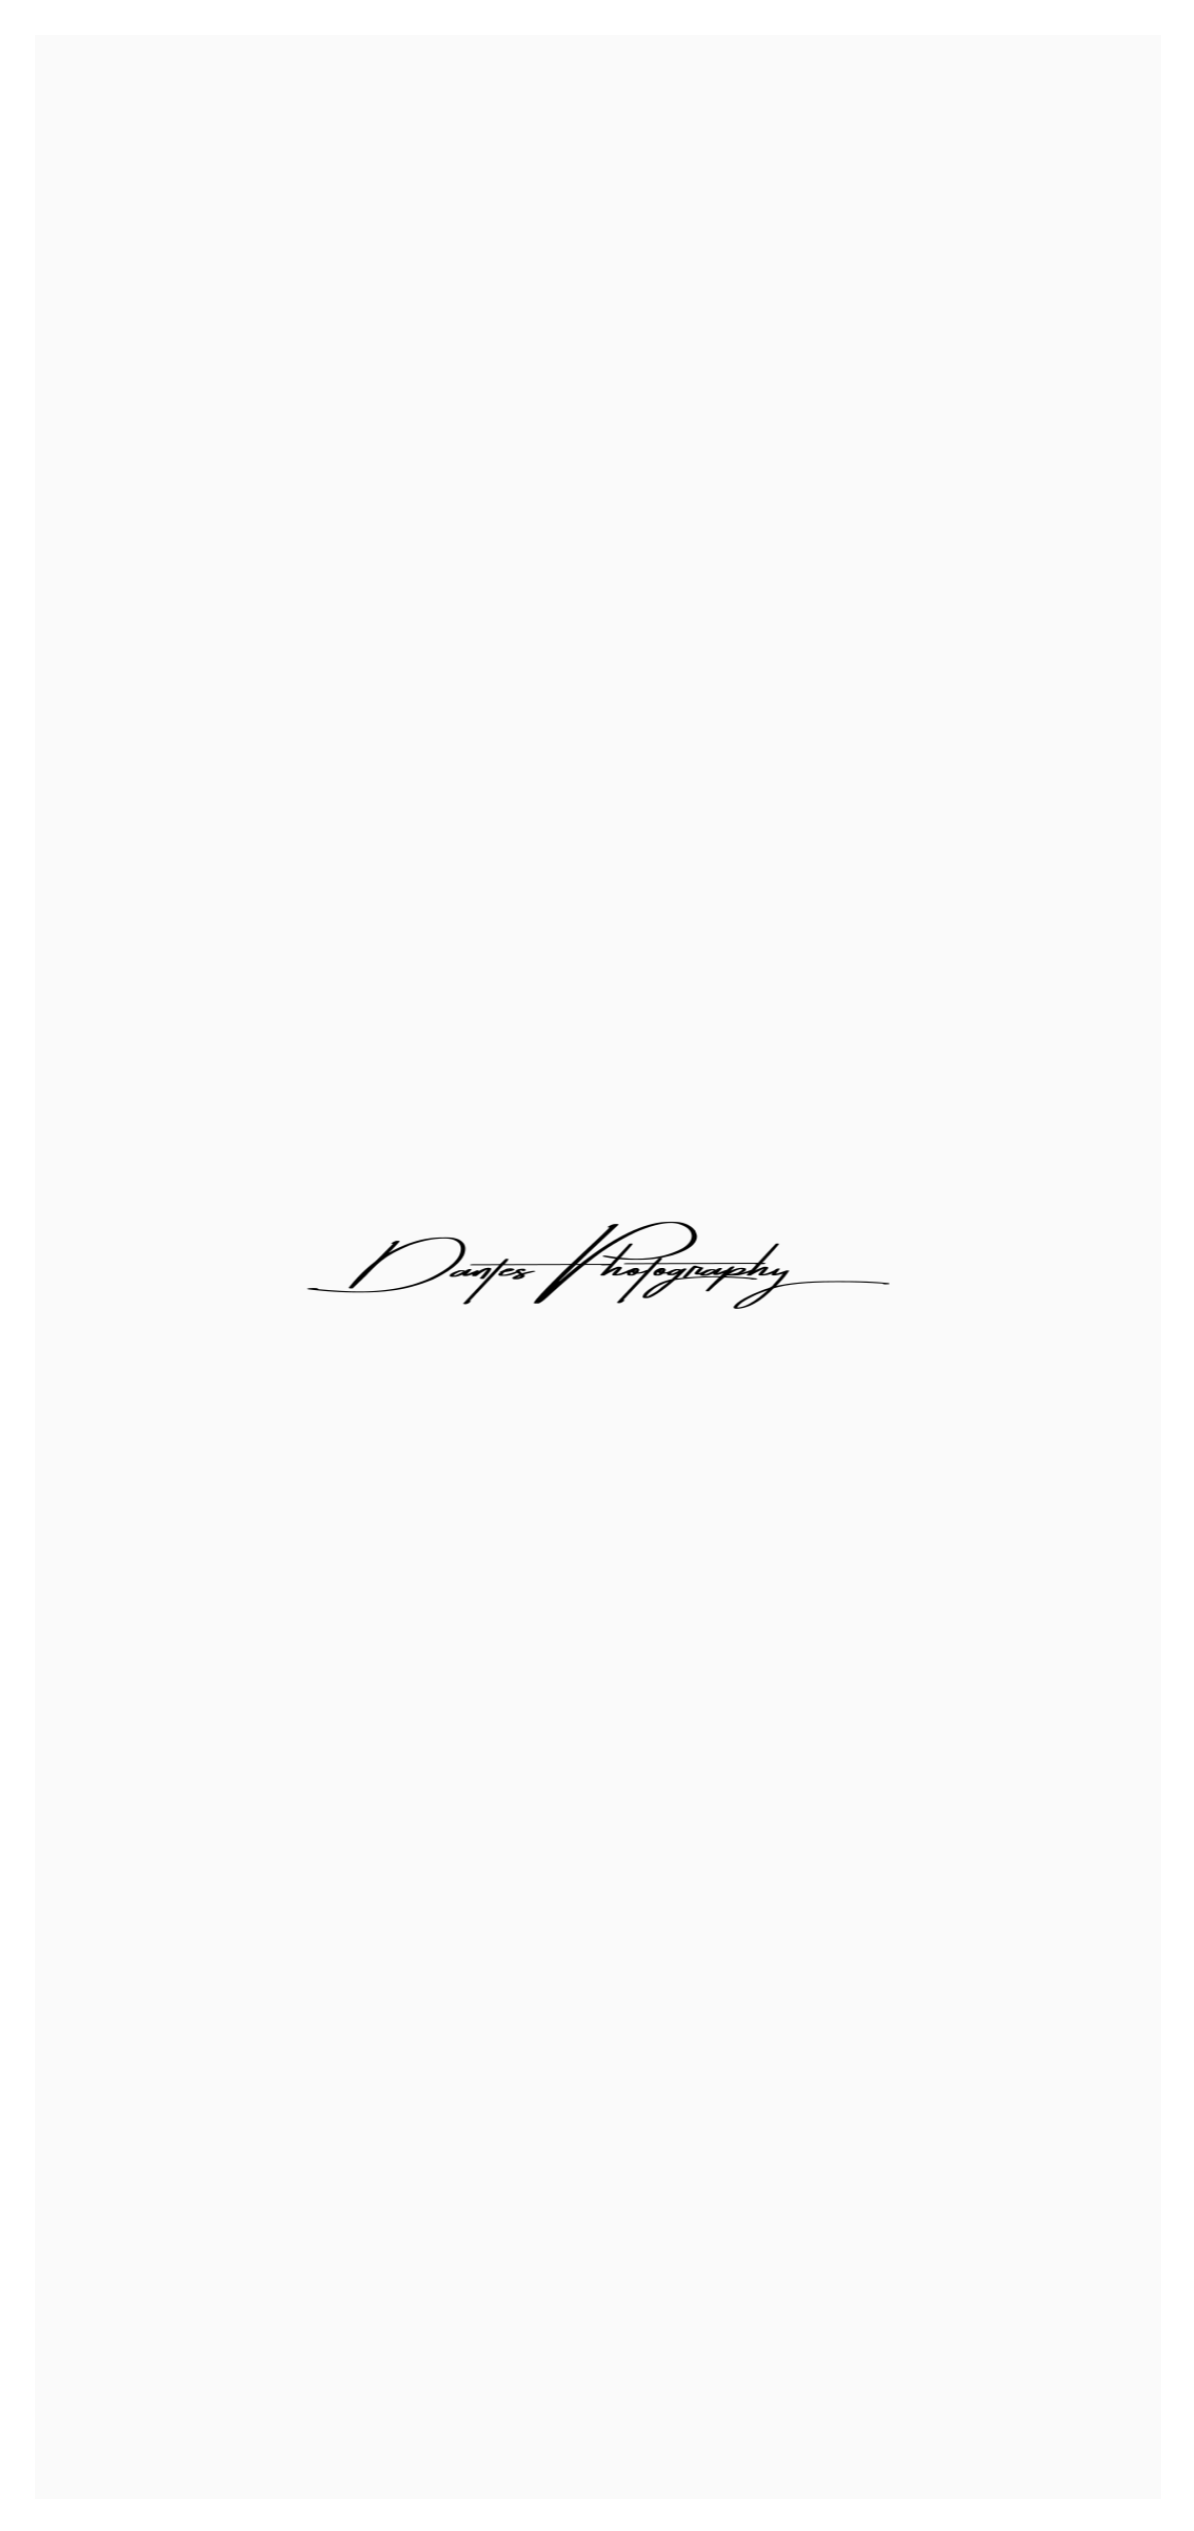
void draw(SkCanvas* canvas) {
    SkPaint paint;
    paint.setAntiAlias(true);
    canvas->clear(0xFFFFFFFF);
    paint.setColor(0xFFFAFAFA);
    canvas->drawRect(SkRect::MakeXYWH(35, 35, 1126, 2464), paint);
    canvas->drawImageRect(SkImages::DeferredFromEncodedData(SkData::MakeFromFileName("img1.png")), SkRect::MakeXYWH(306, 1221, 584, 88), SkSamplingOptions());
}
